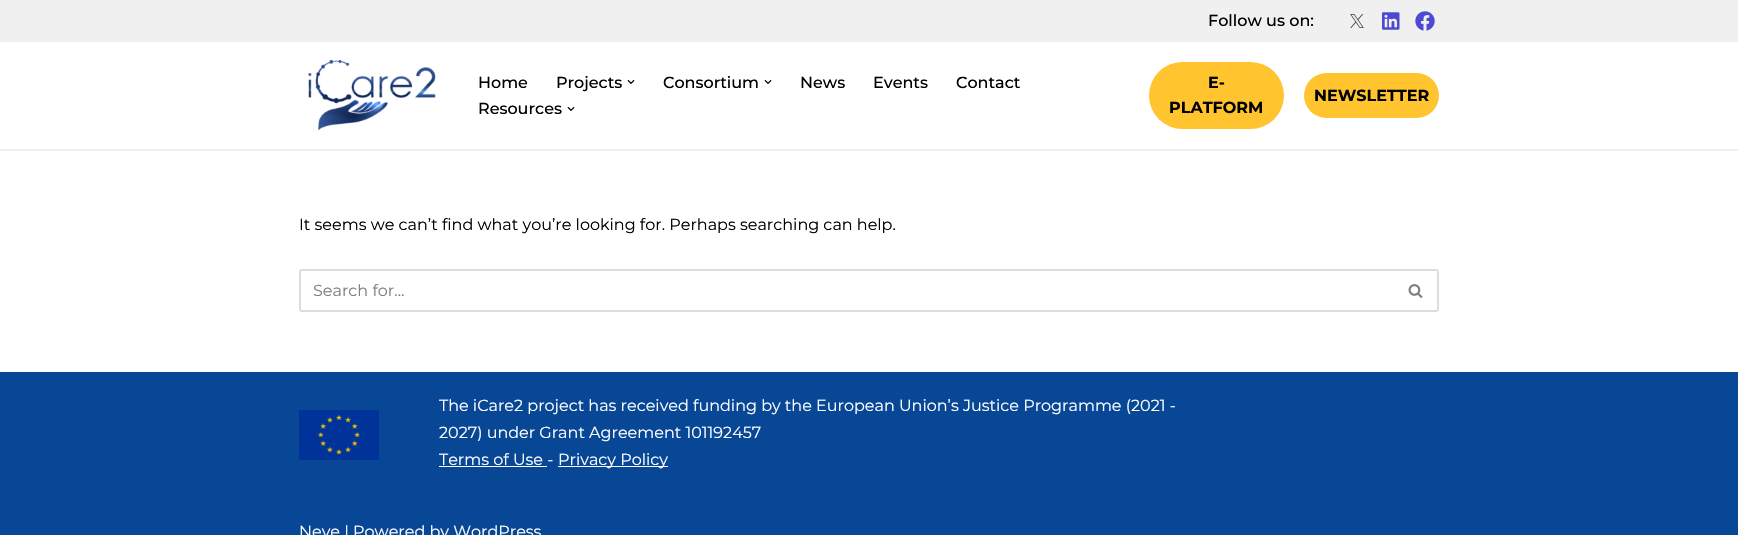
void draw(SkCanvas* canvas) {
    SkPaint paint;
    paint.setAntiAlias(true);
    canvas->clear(0xFFFFFFFF);
    paint.setColor(0xFFF0F0F0);
    canvas->drawRect(SkRect::MakeXYWH(0, 0, 1738, 42), paint);
    SkFont font1(fontMgr->matchFamilyStyle("Montserrat", SkFontStyle(500, SkFontStyle::kNormal_Width, SkFontStyle::kUpright_Slant)), 16);
    font1.setSubpixel(true);
    paint.setColor(0xFF000000);
    canvas->drawString("Follow us on:", 1208, 26, font1, paint);
    canvas->drawImageRect(SkImages::DeferredFromEncodedData(SkData::MakeFromFileName("img1.png")), SkRect::MakeXYWH(1350, 14, 14, 14), SkSamplingOptions());
    canvas->drawImageRect(SkImages::DeferredFromEncodedData(SkData::MakeFromFileName("img2.png")), SkRect::MakeXYWH(1382, 12, 18, 18), SkSamplingOptions());
    canvas->drawImageRect(SkImages::DeferredFromEncodedData(SkData::MakeFromFileName("img3.png")), SkRect::MakeXYWH(1415, 11, 20, 20), SkSamplingOptions());
    paint.setColor(0xFFF0F0F0);
    canvas->drawRect(SkRect::MakeXYWH(0, 149, 1738, 2), paint);
    canvas->drawImageRect(SkImages::DeferredFromEncodedData(SkData::MakeFromFileName("img4.png")), SkRect::MakeXYWH(308, 60, 128, 71), SkSamplingOptions());
    paint.setColor(0xFF000000);
    canvas->drawString("Home", 478, 88, font1, paint);
    canvas->drawString("Projects", 556, 88, font1, paint);
    canvas->drawImageRect(SkImages::DeferredFromEncodedData(SkData::MakeFromFileName("img5.png")), SkRect::MakeXYWH(627, 80, 8, 4), SkSamplingOptions());
    canvas->drawString("Consortium", 663, 88, font1, paint);
    canvas->drawImageRect(SkImages::DeferredFromEncodedData(SkData::MakeFromFileName("img5.png")), SkRect::MakeXYWH(764, 80, 8, 4), SkSamplingOptions());
    canvas->drawString("News", 800, 88, font1, paint);
    canvas->drawString("Events", 873, 88, font1, paint);
    canvas->drawString("Contact", 956, 88, font1, paint);
    canvas->drawString("Resources", 478, 114, font1, paint);
    canvas->drawImageRect(SkImages::DeferredFromEncodedData(SkData::MakeFromFileName("img5.png")), SkRect::MakeXYWH(567, 107, 8, 4), SkSamplingOptions());
    paint.setColor(0xFFFFC42E);
    canvas->drawRoundRect(SkRect::MakeXYWH(1149, 62, 135, 67), 33.5f, 33.5f, paint);
    SkFont font2(fontMgr->matchFamilyStyle("Montserrat", SkFontStyle::Bold()), 16);
    font2.setSubpixel(true);
    paint.setColor(0xFF000000);
    canvas->drawString("E-", 1208, 88, font2, paint);
    canvas->drawString("PLATFORM", 1169, 113, font2, paint);
    paint.setColor(0xFFFFC42E);
    canvas->drawRoundRect(SkRect::MakeXYWH(1304, 73, 135, 45), 22.5f, 22.5f, paint);
    paint.setColor(0xFF000000);
    canvas->drawString("NEWSLETTER", 1314, 101, font2, paint);
    SkFont font3(fontMgr->matchFamilyStyle("Montserrat", SkFontStyle::Normal()), 16);
    font3.setSubpixel(true);
    canvas->drawString("It seems we can’t find what you’re looking for. Perhaps searching can help.", 299, 230, font3, paint);
    paint.setColor(0xFFDDDDDD);
    canvas->drawPath(SkPathBuilder(SkPathFillType::kEvenOdd).moveTo(302, 269).lineTo(1394, 269).lineTo(1394, 312).lineTo(302, 312).cubicTo(300, 312, 299, 311, 299, 309).lineTo(299, 272).cubicTo(299, 270, 300, 269, 302, 269).close().moveTo(302, 271).lineTo(1394, 271).lineTo(1394, 310).lineTo(302, 310).cubicTo(301, 310, 301, 310, 301, 309).lineTo(301, 272).cubicTo(301, 271, 301, 271, 302, 271).close().detach(), paint);
    paint.setColor(0xFF808080);
    canvas->drawString("Search for...", 313, 296, font3, paint);
    paint.setColor(0xFFDDDDDD);
    canvas->drawPath(SkPathBuilder(SkPathFillType::kEvenOdd).moveTo(1394, 269).lineTo(1436, 269).cubicTo(1438, 269, 1439, 270, 1439, 272).lineTo(1439, 309).cubicTo(1439, 311, 1438, 312, 1436, 312).lineTo(1394, 312).close().moveTo(1394, 271).lineTo(1436, 271).cubicTo(1437, 271, 1437, 271, 1437, 272).lineTo(1437, 309).cubicTo(1437, 310, 1437, 310, 1436, 310).lineTo(1394, 310).close().detach(), paint);
    canvas->drawImageRect(SkImages::DeferredFromEncodedData(SkData::MakeFromFileName("img6.png")), SkRect::MakeXYWH(1408, 284, 15, 14), SkSamplingOptions());
    paint.setColor(0xFF074795);
    canvas->drawRect(SkRect::MakeXYWH(0, 372, 1738, 163), paint);
    paint.setColor(0xFFFFFFFF);
    canvas->drawString("The iCare2 project has received funding by the European Union’s Justice Programme (2021 -", 439, 411, font3, paint);
    canvas->drawString("2027) under Grant Agreement 101192457", 439, 438, font3, paint);
    canvas->drawString("Terms of Use -", 439, 465, font3, paint);
    canvas->drawRect(SkRect::MakeXYWH(439, 466, 108, 1), paint);
    canvas->drawRect(SkRect::MakeXYWH(558, 466, 110, 1), paint);
    canvas->drawString("Privacy Policy", 558, 465, font3, paint);
    canvas->drawImageRect(SkImages::DeferredFromEncodedData(SkData::MakeFromFileName("img7.png")), SkRect::MakeXYWH(299, 410, 80, 50), SkSamplingOptions());
    canvas->drawString("Neve | Powered by WordPress", 299, 537, font3, paint);
}
